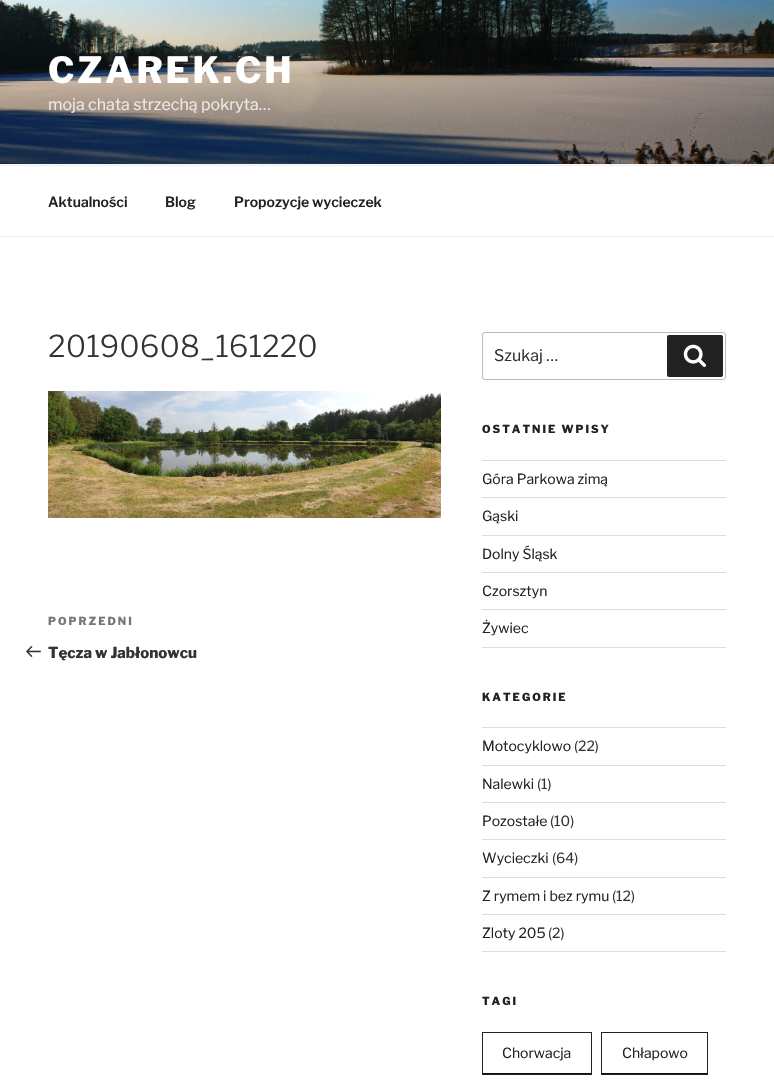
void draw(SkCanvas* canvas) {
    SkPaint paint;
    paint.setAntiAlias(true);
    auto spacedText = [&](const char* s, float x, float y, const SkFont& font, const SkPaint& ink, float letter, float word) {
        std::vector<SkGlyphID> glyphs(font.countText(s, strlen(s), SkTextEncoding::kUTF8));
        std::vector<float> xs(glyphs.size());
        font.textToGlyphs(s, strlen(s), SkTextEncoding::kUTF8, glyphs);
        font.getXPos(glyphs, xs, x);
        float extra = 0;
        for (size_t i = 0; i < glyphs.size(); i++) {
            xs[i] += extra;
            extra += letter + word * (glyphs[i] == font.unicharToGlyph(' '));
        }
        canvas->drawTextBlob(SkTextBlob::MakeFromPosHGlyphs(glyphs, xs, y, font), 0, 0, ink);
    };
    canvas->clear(0xFFFFFFFF);
    paint.setColor(0xFFFAFAFA);
    canvas->drawRect(SkRect::MakeXYWH(0, 164, 774, 1), paint);
    canvas->drawImageRect(SkImages::DeferredFromEncodedData(SkData::MakeFromFileName("img1.png")), SkRect::MakeXYWH(0, 0, 774, 164), SkSamplingOptions());
    SkFont font1(fontMgr->matchFamilyStyle("Libre Franklin", SkFontStyle(800, SkFontStyle::kNormal_Width, SkFontStyle::kUpright_Slant)), 36);
    font1.setSubpixel(true);
    paint.setColor(0xFFFFFFFF);
    spacedText("CZAREK.CH", 48, 83, font1, paint, 2.9f, 0);
    SkFont font2(fontMgr->matchFamilyStyle("Libre Franklin", SkFontStyle::Normal()), 16);
    font2.setSubpixel(true);
    paint.setColor(0xFFEDEAE7);
    canvas->drawString("moja chata strzechą pokryta…", 48, 110, font2, paint);
    paint.setColor(0xFFEEEEEE);
    canvas->drawRect(SkRect::MakeXYWH(0, 165, 774, 1), paint);
    canvas->drawRect(SkRect::MakeXYWH(0, 236, 774, 1), paint);
    SkFont font3(fontMgr->matchFamilyStyle("Libre Franklin", SkFontStyle(600, SkFontStyle::kNormal_Width, SkFontStyle::kUpright_Slant)), 14);
    font3.setSubpixel(true);
    paint.setColor(0xFF222222);
    canvas->drawString("Aktualności", 48, 207, font3, paint);
    canvas->drawString("Blog", 165, 207, font3, paint);
    canvas->drawString("Propozycje wycieczek", 234, 207, font3, paint);
    SkFont font4(fontMgr->matchFamilyStyle("Libre Franklin", SkFontStyle(300, SkFontStyle::kNormal_Width, SkFontStyle::kUpright_Slant)), 30);
    font4.setSubpixel(true);
    paint.setColor(0xFF333333);
    canvas->drawString("20190608_161220", 48, 357, font4, paint);
    canvas->drawImageRect(SkImages::DeferredFromEncodedData(SkData::MakeFromFileName("img2.png")), SkRect::MakeXYWH(48, 391, 393, 127), SkSamplingOptions());
    SkFont font5(fontMgr->matchFamilyStyle("Libre Franklin", SkFontStyle(800, SkFontStyle::kNormal_Width, SkFontStyle::kUpright_Slant)), 11);
    font5.setSubpixel(true);
    paint.setColor(0xFF767676);
    spacedText("POPRZEDNI", 48, 625, font5, paint, 2, 0);
    canvas->drawImageRect(SkImages::DeferredFromEncodedData(SkData::MakeFromFileName("img3.png")), SkRect::MakeXYWH(26, 646, 15, 11), SkSamplingOptions());
    SkFont font6(fontMgr->matchFamilyStyle("Libre Franklin", SkFontStyle(800, SkFontStyle::kNormal_Width, SkFontStyle::kUpright_Slant)), 15);
    font6.setSubpixel(true);
    paint.setColor(0xFF333333);
    canvas->drawString("Tęcza w Jabłonowcu", 48, 658, font6, paint);
    paint.setStyle(SkPaint::kStroke_Style);
    paint.setStrokeWidth(1);
    paint.setColor(0xFFBBBBBB);
    canvas->drawRoundRect(SkRect::MakeXYWH(482.5f, 332.5f, 243, 47), 2.5f, 2.5f, paint);
    paint.setStyle(SkPaint::kFill_Style);
    paint.setColor(0xFF333333);
    canvas->drawString("Szukaj …", 494, 361, font2, paint);
    paint.setColor(0xFF222222);
    canvas->drawRoundRect(SkRect::MakeXYWH(667, 335, 56, 42), 2, 2, paint);
    canvas->drawImageRect(SkImages::DeferredFromEncodedData(SkData::MakeFromFileName("img4.png")), SkRect::MakeXYWH(683, 344, 23, 23), SkSamplingOptions());
    spacedText("OSTATNIE WPISY", 482, 433, font5, paint, 2, 0);
    paint.setColor(0xFFDDDDDD);
    canvas->drawRect(SkRect::MakeXYWH(482, 460, 244, 1), paint);
    canvas->drawRect(SkRect::MakeXYWH(482, 497, 244, 1), paint);
    SkFont font7(fontMgr->matchFamilyStyle("Libre Franklin", SkFontStyle::Normal()), 14);
    font7.setSubpixel(true);
    paint.setColor(0xFF222222);
    canvas->drawString("Góra Parkowa zimą", 482, 484, font7, paint);
    paint.setColor(0xFFDDDDDD);
    canvas->drawRect(SkRect::MakeXYWH(482, 535, 244, 1), paint);
    paint.setColor(0xFF222222);
    canvas->drawString("Gąski", 482, 521, font7, paint);
    paint.setColor(0xFFDDDDDD);
    canvas->drawRect(SkRect::MakeXYWH(482, 572, 244, 1), paint);
    paint.setColor(0xFF222222);
    canvas->drawString("Dolny Śląsk", 482, 559, font7, paint);
    paint.setColor(0xFFDDDDDD);
    canvas->drawRect(SkRect::MakeXYWH(482, 609, 244, 1), paint);
    paint.setColor(0xFF222222);
    canvas->drawString("Czorsztyn", 482, 596, font7, paint);
    paint.setColor(0xFFDDDDDD);
    canvas->drawRect(SkRect::MakeXYWH(482, 647, 244, 1), paint);
    paint.setColor(0xFF222222);
    canvas->drawString("Żywiec", 482, 633, font7, paint);
    spacedText("KATEGORIE", 482, 701, font5, paint, 2, 0);
    paint.setColor(0xFFDDDDDD);
    canvas->drawRect(SkRect::MakeXYWH(482, 727, 244, 1), paint);
    canvas->drawRect(SkRect::MakeXYWH(482, 765, 244, 1), paint);
    paint.setColor(0xFF222222);
    canvas->drawString("Motocyklowo", 482, 751, font7, paint);
    paint.setColor(0xFF333333);
    canvas->drawString("(22)", 574, 751, font7, paint);
    paint.setColor(0xFFDDDDDD);
    canvas->drawRect(SkRect::MakeXYWH(482, 802, 244, 1), paint);
    paint.setColor(0xFF222222);
    canvas->drawString("Nalewki", 482, 789, font7, paint);
    paint.setColor(0xFF333333);
    canvas->drawString("(1)", 537, 789, font7, paint);
    paint.setColor(0xFFDDDDDD);
    canvas->drawRect(SkRect::MakeXYWH(482, 839, 244, 1), paint);
    paint.setColor(0xFF222222);
    canvas->drawString("Pozostałe", 482, 826, font7, paint);
    paint.setColor(0xFF333333);
    canvas->drawString("(10)", 550, 826, font7, paint);
    paint.setColor(0xFFDDDDDD);
    canvas->drawRect(SkRect::MakeXYWH(482, 877, 244, 1), paint);
    paint.setColor(0xFF222222);
    canvas->drawString("Wycieczki", 482, 863, font7, paint);
    paint.setColor(0xFF333333);
    canvas->drawString("(64)", 552, 863, font7, paint);
    paint.setColor(0xFFDDDDDD);
    canvas->drawRect(SkRect::MakeXYWH(482, 914, 244, 1), paint);
    paint.setColor(0xFF222222);
    canvas->drawString("Z rymem i bez rymu", 482, 901, font7, paint);
    paint.setColor(0xFF333333);
    canvas->drawString("(12)", 612, 901, font7, paint);
    paint.setColor(0xFFDDDDDD);
    canvas->drawRect(SkRect::MakeXYWH(482, 951, 244, 1), paint);
    paint.setColor(0xFF222222);
    canvas->drawString("Zloty 205", 482, 938, font7, paint);
    paint.setColor(0xFF333333);
    canvas->drawString("(2)", 548, 938, font7, paint);
    paint.setColor(0xFF222222);
    spacedText("TAGI", 482, 1005, font5, paint, 2, 0);
    paint.setColor(0xFF0F0F0F);
    canvas->drawRect(SkRect::MakeXYWH(483, 1073, 108, 1), paint);
    paint.setStyle(SkPaint::kStroke_Style);
    paint.setColor(0xFF222222);
    canvas->drawRect(SkRect::MakeXYWH(482.5f, 1032.5f, 109, 42), paint);
    paint.setStyle(SkPaint::kFill_Style);
    canvas->drawString("Chorwacja", 502, 1058, font7, paint);
    paint.setColor(0xFF0F0F0F);
    canvas->drawRect(SkRect::MakeXYWH(602, 1073, 105, 1), paint);
    paint.setStyle(SkPaint::kStroke_Style);
    paint.setColor(0xFF222222);
    canvas->drawRect(SkRect::MakeXYWH(601.5f, 1032.5f, 106, 42), paint);
    paint.setStyle(SkPaint::kFill_Style);
    canvas->drawString("Chłapowo", 622, 1058, font7, paint);
}
